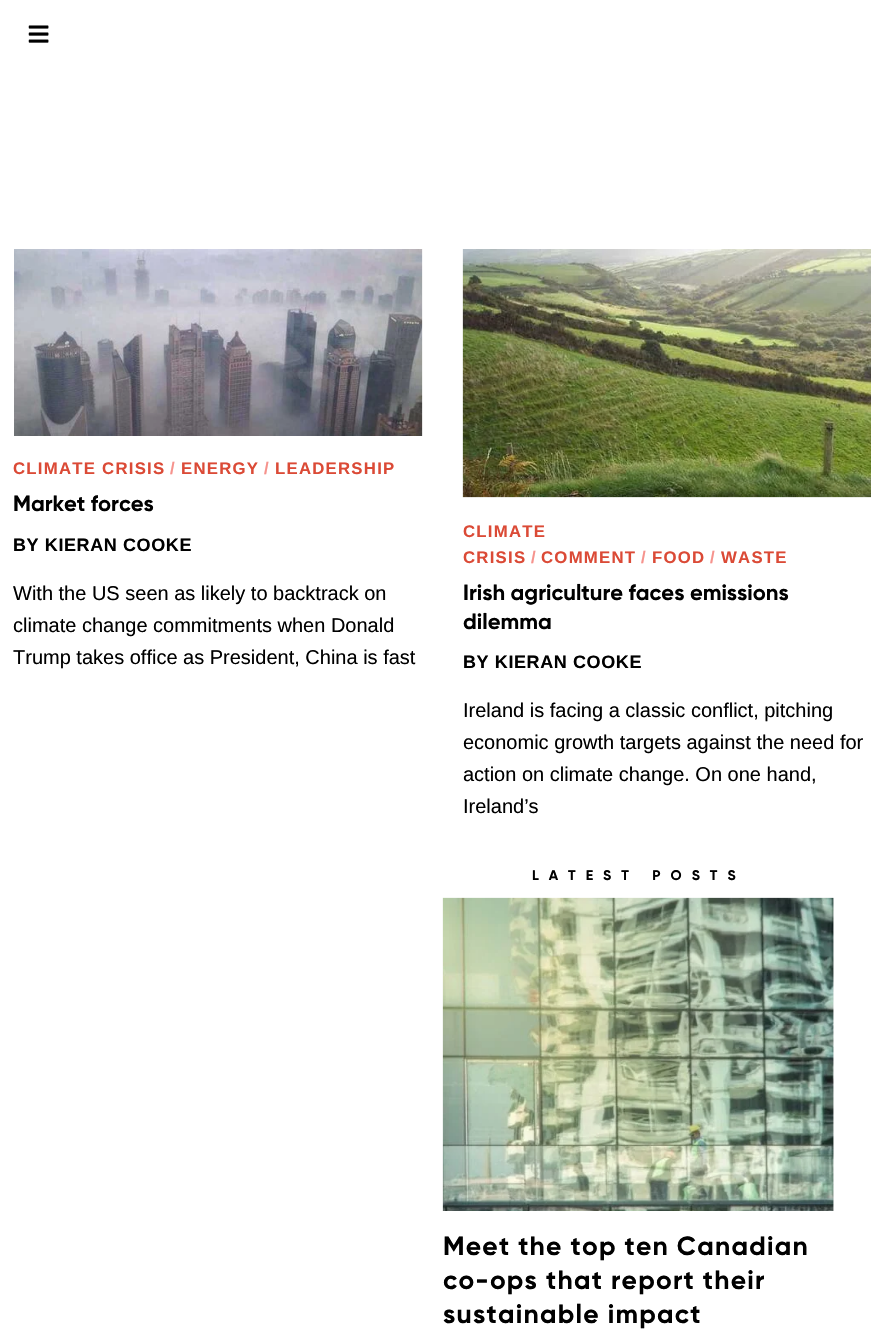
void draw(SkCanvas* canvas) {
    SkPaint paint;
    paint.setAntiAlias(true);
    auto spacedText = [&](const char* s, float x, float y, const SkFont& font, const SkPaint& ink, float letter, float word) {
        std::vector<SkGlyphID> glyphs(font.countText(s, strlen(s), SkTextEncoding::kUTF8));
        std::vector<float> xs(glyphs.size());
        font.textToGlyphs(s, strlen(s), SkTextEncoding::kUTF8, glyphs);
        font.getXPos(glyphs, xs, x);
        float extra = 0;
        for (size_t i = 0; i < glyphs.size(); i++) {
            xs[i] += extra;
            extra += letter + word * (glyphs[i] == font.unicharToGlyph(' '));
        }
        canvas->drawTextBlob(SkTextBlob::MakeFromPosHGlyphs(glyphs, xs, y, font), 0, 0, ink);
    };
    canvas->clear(0xFFFFFFFF);
    canvas->drawImageRect(SkImages::DeferredFromEncodedData(SkData::MakeFromFileName("img1.png")), SkRect::MakeXYWH(28, 25, 21, 18), SkSamplingOptions());
    canvas->drawImageRect(SkImages::DeferredFromEncodedData(SkData::MakeFromFileName("img2.png")), SkRect::MakeXYWH(14, 249, 409, 187), SkSamplingOptions());
    SkFont font1(fontMgr->matchFamilyStyle("Liberation Sans", SkFontStyle::Bold()), 16.75f);
    font1.setSubpixel(true);
    paint.setColor(0xFFDB4A36);
    spacedText("CLIMATE CRISIS", 13, 474, font1, paint, 1.25f, 0);
    paint.setColor(0xFFF6938D);
    spacedText("/", 170, 474, font1, paint, 1.25f, 0);
    paint.setColor(0xFFDB4A36);
    spacedText("ENERGY", 181, 474, font1, paint, 1.25f, 0);
    paint.setColor(0xFFF6938D);
    spacedText("/", 264, 474, font1, paint, 1.25f, 0);
    paint.setColor(0xFFDB4A36);
    spacedText("LEADERSHIP", 275, 474, font1, paint, 1.25f, 0);
    SkFont font2(fontMgr->matchFamilyStyle("Gilroy", SkFontStyle::Bold()), 22);
    font2.setSubpixel(true);
    paint.setColor(0xFF000000);
    canvas->drawString("Market forces", 13, 511, font2, paint);
    SkFont font3(fontMgr->matchFamilyStyle("Liberation Sans", SkFontStyle::Bold()), 18);
    font3.setSubpixel(true);
    spacedText("BY KIERAN COOKE", 13, 551, font3, paint, 0.6f, 0);
    SkFont font4(fontMgr->matchFamilyStyle("Liberation Sans", SkFontStyle::Normal()), 20);
    font4.setSubpixel(true);
    canvas->drawString("With the US seen as likely to backtrack on", 13, 600, font4, paint);
    canvas->drawString("climate change commitments when Donald", 13, 632, font4, paint);
    canvas->drawString("Trump takes office as President, China is fast", 13, 664, font4, paint);
    canvas->drawImageRect(SkImages::DeferredFromEncodedData(SkData::MakeFromFileName("img3.png")), SkRect::MakeXYWH(462, 249, 409, 249), SkSamplingOptions());
    paint.setColor(0xFFDB4A36);
    spacedText("CLIMATE", 463, 537, font1, paint, 1.25f, 0);
    spacedText("CRISIS", 463, 563, font1, paint, 1.25f, 0);
    paint.setColor(0xFFF6938D);
    spacedText("/", 531, 563, font1, paint, 1.25f, 0);
    paint.setColor(0xFFDB4A36);
    spacedText("COMMENT", 541, 563, font1, paint, 1.25f, 0);
    paint.setColor(0xFFF6938D);
    spacedText("/", 641, 563, font1, paint, 1.25f, 0);
    paint.setColor(0xFFDB4A36);
    spacedText("FOOD", 652, 563, font1, paint, 1.25f, 0);
    paint.setColor(0xFFF6938D);
    spacedText("/", 710, 563, font1, paint, 1.25f, 0);
    paint.setColor(0xFFDB4A36);
    spacedText("WASTE", 721, 563, font1, paint, 1.25f, 0);
    paint.setColor(0xFF000000);
    canvas->drawString("Irish agriculture faces emissions", 463, 600, font2, paint);
    canvas->drawString("dilemma", 463, 629, font2, paint);
    spacedText("BY KIERAN COOKE", 463, 668, font3, paint, 0.6f, 0);
    canvas->drawString("Ireland is facing a classic conflict, pitching", 463, 717, font4, paint);
    canvas->drawString("economic growth targets against the need for", 463, 749, font4, paint);
    canvas->drawString("action on climate change. On one hand,", 463, 781, font4, paint);
    canvas->drawString("Ireland’s", 463, 813, font4, paint);
    SkFont font5(fontMgr->matchFamilyStyle("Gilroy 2", SkFontStyle::Bold()), 14);
    font5.setSubpixel(true);
    spacedText("LATEST POSTS", 532, 880, font5, paint, 10, 0);
    canvas->drawImageRect(SkImages::DeferredFromEncodedData(SkData::MakeFromFileName("img4.png")), SkRect::MakeXYWH(442, 897, 392, 314), SkSamplingOptions());
    SkFont font6(fontMgr->matchFamilyStyle("Gilroy", SkFontStyle::Bold()), 26.4f);
    font6.setSubpixel(true);
    spacedText("Meet the top ten Canadian", 443, 1255, font6, paint, 1.25f, 0);
    spacedText("co-ops that report their", 443, 1289, font6, paint, 1.25f, 0);
    spacedText("sustainable impact", 443, 1323, font6, paint, 1.25f, 0);
}
